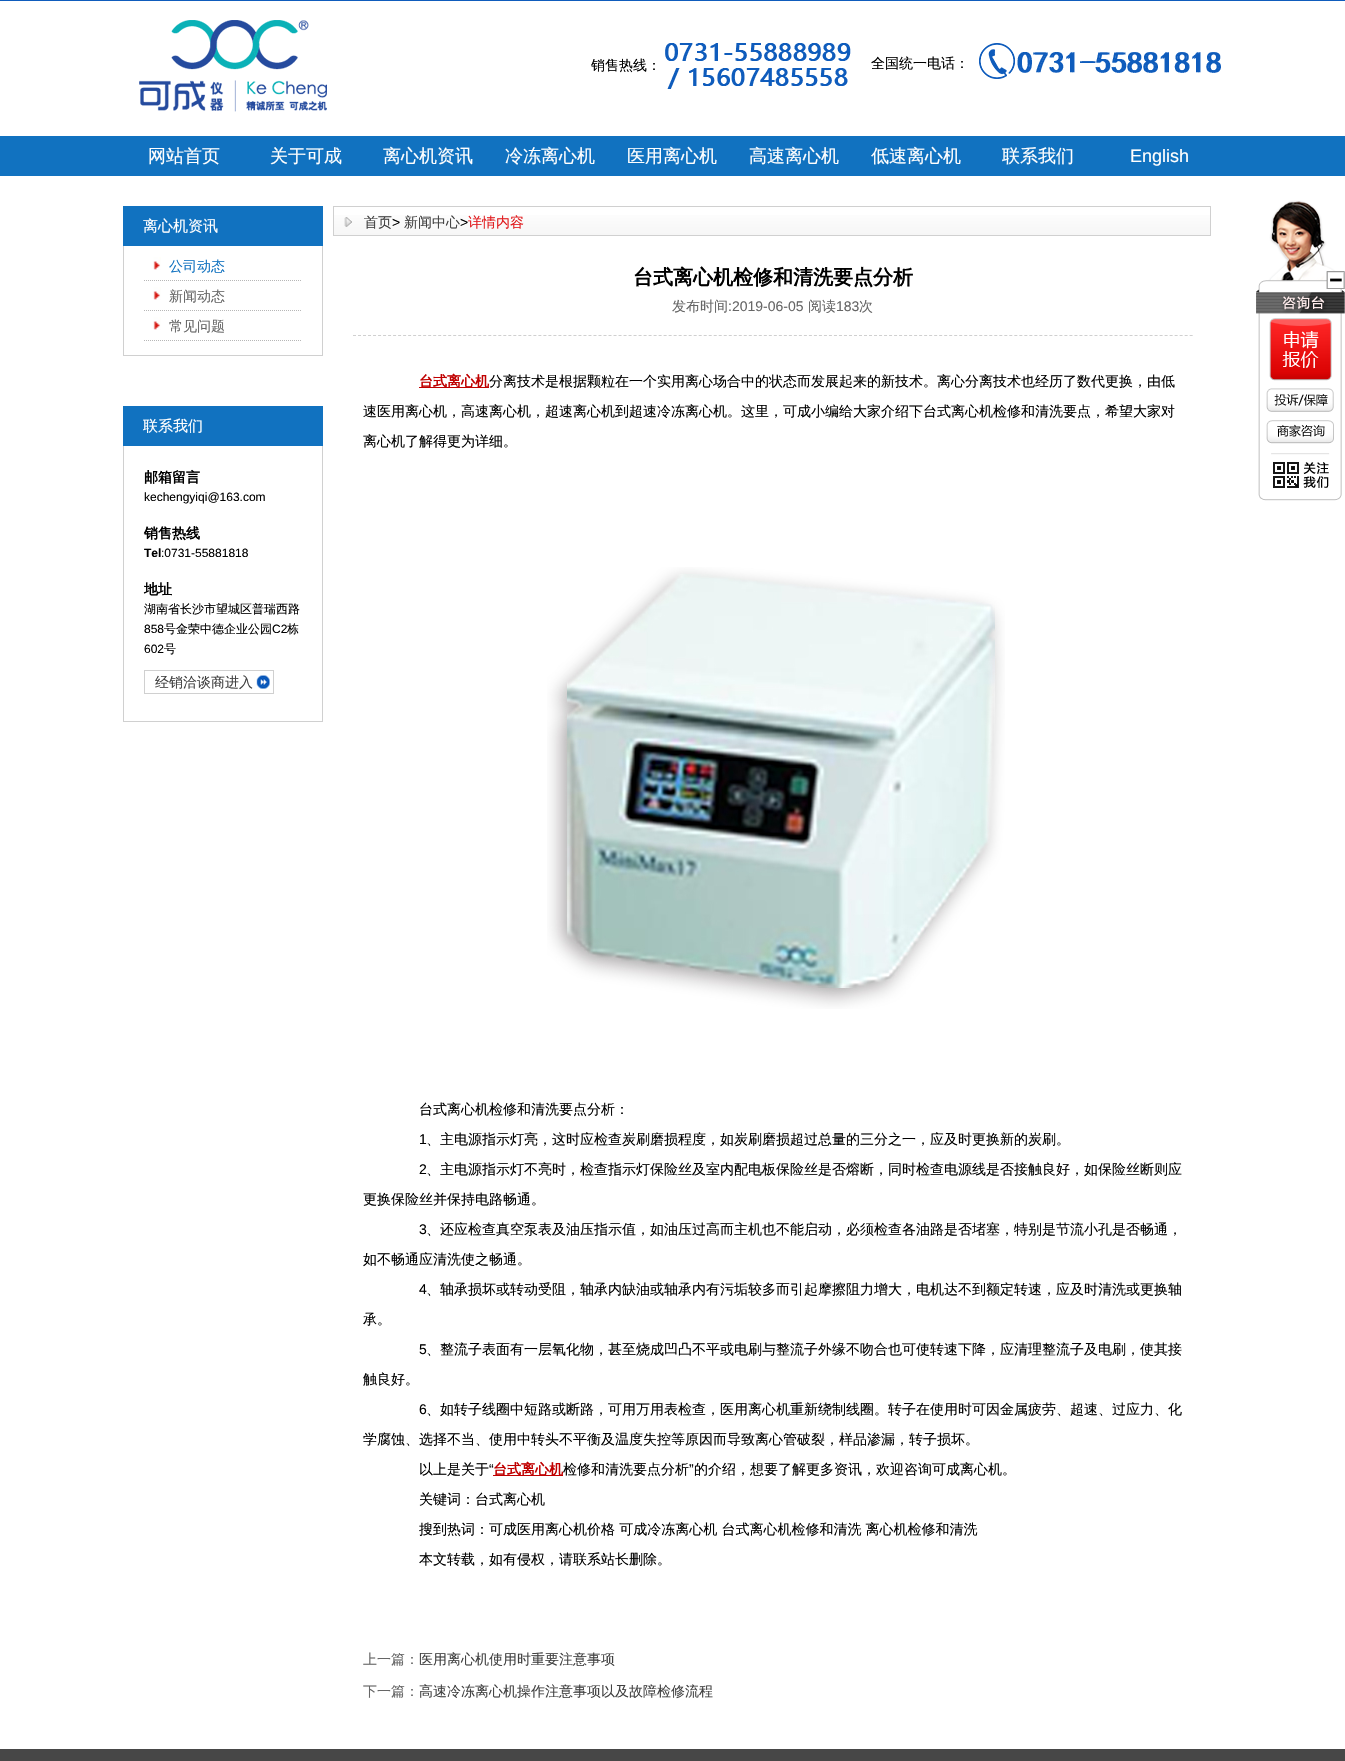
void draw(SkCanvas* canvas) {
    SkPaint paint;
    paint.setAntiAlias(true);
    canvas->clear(0xFFFFFFFF);
    paint.setColor(0xFF0F5CBC);
    canvas->drawRect(SkRect::MakeXYWH(0, 0, 1345, 1), paint);
    canvas->drawImageRect(SkImages::DeferredFromEncodedData(SkData::MakeFromFileName("img1.png")), SkRect::MakeXYWH(139, 20, 188, 92), SkSamplingOptions());
    SkFont font1(fontMgr->matchFamilyStyle("WenQuanYi Zen Hei", SkFontStyle(500, SkFontStyle::kNormal_Width, SkFontStyle::kUpright_Slant)), 14);
    font1.setSubpixel(true);
    paint.setColor(0xFF000000);
    canvas->drawString("销售热线：", 591, 70, font1, paint);
    canvas->drawImageRect(SkImages::DeferredFromEncodedData(SkData::MakeFromFileName("img2.png")), SkRect::MakeXYWH(665, 43, 186, 46), SkSamplingOptions());
    canvas->drawString("全国统一电话：", 871, 68, font1, paint);
    canvas->drawImageRect(SkImages::DeferredFromEncodedData(SkData::MakeFromFileName("img3.png")), SkRect::MakeXYWH(979, 43, 242, 36), SkSamplingOptions());
    paint.setColor(0xFF1172C0);
    canvas->drawRect(SkRect::MakeXYWH(0, 136, 1345, 40), paint);
    SkFont font2(fontMgr->matchFamilyStyle("WenQuanYi Zen Hei", SkFontStyle(500, SkFontStyle::kNormal_Width, SkFontStyle::kUpright_Slant)), 18);
    font2.setSubpixel(true);
    paint.setColor(0xFFFFFFFF);
    canvas->drawString("网站首页", 148, 162, font2, paint);
    canvas->drawString("关于可成", 270, 162, font2, paint);
    canvas->drawString("离心机资讯", 383, 162, font2, paint);
    canvas->drawString("冷冻离心机", 505, 162, font2, paint);
    canvas->drawString("医用离心机", 627, 162, font2, paint);
    canvas->drawString("高速离心机", 749, 162, font2, paint);
    canvas->drawString("低速离心机", 871, 162, font2, paint);
    canvas->drawString("联系我们", 1002, 162, font2, paint);
    SkFont font3(fontMgr->matchFamilyStyle("Liberation Sans", SkFontStyle::Normal()), 18);
    font3.setSubpixel(true);
    canvas->drawString("English", 1130, 162, font3, paint);
    paint.setColor(0xFF1172C0);
    canvas->drawRect(SkRect::MakeXYWH(123, 206, 200, 40), paint);
    SkFont font4(fontMgr->matchFamilyStyle("WenQuanYi Zen Hei", SkFontStyle(500, SkFontStyle::kNormal_Width, SkFontStyle::kUpright_Slant)), 15);
    font4.setSubpixel(true);
    paint.setColor(0xFFFFFFFF);
    canvas->drawString("离心机资讯", 143, 231, font4, paint);
    paint.setColor(0xFFD0D0D0);
    canvas->drawRect(SkRect::MakeXYWH(322, 246, 1, 110), paint);
    canvas->drawRect(SkRect::MakeXYWH(123, 355, 200, 1), paint);
    canvas->drawRect(SkRect::MakeXYWH(123, 246, 1, 110), paint);
    paint.setStyle(SkPaint::kStroke_Style);
    paint.setStrokeWidth(1);
    paint.setColor(0xFFB7B7B7);
    paint.setPathEffect(SkDashPathEffect::Make({{1, 1}}, 0));
    canvas->drawPath(SkPathBuilder().moveTo(144, 280.5f).lineTo(302, 280.5f).detach(), paint);
    paint.setPathEffect(nullptr);
    canvas->drawImageRect(SkImages::DeferredFromEncodedData(SkData::MakeFromFileName("img4.png")), SkRect::MakeXYWH(153, 257, 8, 13), SkSamplingOptions());
    paint.setStyle(SkPaint::kFill_Style);
    paint.setColor(0xFF1172C0);
    canvas->drawString("公司动态", 169, 271, font1, paint);
    paint.setStyle(SkPaint::kStroke_Style);
    paint.setColor(0xFFB7B7B7);
    paint.setPathEffect(SkDashPathEffect::Make({{1, 1}}, 0));
    canvas->drawPath(SkPathBuilder().moveTo(144, 310.5f).lineTo(302, 310.5f).detach(), paint);
    paint.setPathEffect(nullptr);
    canvas->drawImageRect(SkImages::DeferredFromEncodedData(SkData::MakeFromFileName("img4.png")), SkRect::MakeXYWH(153, 287, 8, 13), SkSamplingOptions());
    paint.setStyle(SkPaint::kFill_Style);
    paint.setColor(0xFF666666);
    canvas->drawString("新闻动态", 169, 301, font1, paint);
    paint.setStyle(SkPaint::kStroke_Style);
    paint.setColor(0xFFB7B7B7);
    paint.setPathEffect(SkDashPathEffect::Make({{1, 1}}, 0));
    canvas->drawPath(SkPathBuilder().moveTo(144, 340.5f).lineTo(302, 340.5f).detach(), paint);
    paint.setPathEffect(nullptr);
    canvas->drawImageRect(SkImages::DeferredFromEncodedData(SkData::MakeFromFileName("img4.png")), SkRect::MakeXYWH(153, 317, 8, 13), SkSamplingOptions());
    paint.setStyle(SkPaint::kFill_Style);
    paint.setColor(0xFF666666);
    canvas->drawString("常见问题", 169, 331, font1, paint);
    {
        const SkColor colors[] = {0xFFFFFFFF, 0xFFF6F6F6};
        const float stops[] = {0, 1};
        const SkPoint ends[] = {{772, 207}, {772, 235}};
        paint.setShader(SkGradientShader::MakeLinear(ends, colors, stops, 2, SkTileMode::kClamp));
        paint.setAlpha(255);
    }
    canvas->drawRect(SkRect::MakeXYWH(334, 215, 876, 20), paint);
    paint.setStyle(SkPaint::kStroke_Style);
    paint.setShader(nullptr);
    paint.setColor(0xFFD0D0D0);
    canvas->drawRect(SkRect::MakeXYWH(333.5f, 206.5f, 877, 29), paint);
    canvas->drawImageRect(SkImages::DeferredFromEncodedData(SkData::MakeFromFileName("img5.png")), SkRect::MakeXYWH(344, 217, 8, 10), SkSamplingOptions());
    paint.setStyle(SkPaint::kFill_Style);
    paint.setColor(0xFF404040);
    canvas->drawString("首页", 364, 227, font1, paint);
    SkFont font5(fontMgr->matchFamilyStyle("Liberation Sans", SkFontStyle::Normal()), 14);
    font5.setSubpixel(true);
    paint.setColor(0xFF000000);
    canvas->drawString(">", 392, 227, font5, paint);
    paint.setColor(0xFF404040);
    canvas->drawString("新闻中心", 404, 227, font1, paint);
    paint.setColor(0xFF000000);
    canvas->drawString(">", 460, 227, font5, paint);
    paint.setColor(0xFFE11C1F);
    canvas->drawString("详情内容", 468, 227, font1, paint);
    SkFont font6(fontMgr->matchFamilyStyle("WenQuanYi Zen Hei", SkFontStyle::Bold()), 20);
    font6.setSubpixel(true);
    paint.setColor(0xFF000000);
    canvas->drawString("台式离心机检修和清洗要点分析", 633, 284, font6, paint);
    paint.setStyle(SkPaint::kStroke_Style);
    paint.setColor(0xFFD0D0D0);
    paint.setPathEffect(SkDashPathEffect::Make({{3, 2.01f}}, 0));
    canvas->drawPath(SkPathBuilder().moveTo(353, 335.5f).lineTo(1193, 335.5f).detach(), paint);
    paint.setPathEffect(nullptr);
    paint.setStyle(SkPaint::kFill_Style);
    paint.setColor(0xFF666666);
    canvas->drawString("发布时间", 672, 311, font1, paint);
    canvas->drawString(":2019-06-05", 728, 311, font5, paint);
    canvas->drawString("阅读", 808, 311, font1, paint);
    canvas->drawString("183", 836, 311, font5, paint);
    canvas->drawString("次", 859, 311, font1, paint);
    paint.setColor(0xFFC00000);
    canvas->drawRect(SkRect::MakeXYWH(419, 387, 70, 1), paint);
    SkFont font7(fontMgr->matchFamilyStyle("WenQuanYi Zen Hei", SkFontStyle::Bold()), 14);
    font7.setSubpixel(true);
    canvas->drawString("台式离心机", 419, 386, font7, paint);
    paint.setColor(0xFF000000);
    canvas->drawString("分离技术是根据颗粒在一个实用离心场合中的状态而发展起来的新技术。离心分离技术也经历了数代更换，由低", 489, 386, font1, paint);
    canvas->drawString("速医用离心机，高速离心机，超速离心机到超速冷冻离心机。这里，可成小编给大家介绍下台式离心机检修和清洗要点，希望大家对", 363, 416, font1, paint);
    canvas->drawString("离心机了解得更为详细。", 363, 446, font1, paint);
    canvas->drawImageRect(SkImages::DeferredFromEncodedData(SkData::MakeFromFileName("img6.png")), SkRect::MakeXYWH(547, 567, 458, 442), SkSamplingOptions());
    canvas->drawString("台式离心机检修和清洗要点分析：", 419, 1114, font1, paint);
    canvas->drawString("1", 419, 1144, font5, paint);
    canvas->drawString("、主电源指示灯亮，这时应检查炭刷磨损程度，如炭刷磨损超过总量的三分之一，应及时更换新的炭刷。", 426, 1144, font1, paint);
    canvas->drawString("2", 419, 1174, font5, paint);
    canvas->drawString("、主电源指示灯不亮时，检查指示灯保险丝及室内配电板保险丝是否熔断，同时检查电源线是否接触良好，如保险丝断则应", 426, 1174, font1, paint);
    canvas->drawString("更换保险丝并保持电路畅通。", 363, 1204, font1, paint);
    canvas->drawString("3", 419, 1234, font5, paint);
    canvas->drawString("、还应检查真空泵表及油压指示值，如油压过高而主机也不能启动，必须检查各油路是否堵塞，特别是节流小孔是否畅通，", 426, 1234, font1, paint);
    canvas->drawString("如不畅通应清洗使之畅通。", 363, 1264, font1, paint);
    canvas->drawString("4", 419, 1294, font5, paint);
    canvas->drawString("、轴承损坏或转动受阻，轴承内缺油或轴承内有污垢较多而引起摩擦阻力增大，电机达不到额定转速，应及时清洗或更换轴", 426, 1294, font1, paint);
    canvas->drawString("承。", 363, 1324, font1, paint);
    canvas->drawString("5", 419, 1354, font5, paint);
    canvas->drawString("、整流子表面有一层氧化物，甚至烧成凹凸不平或电刷与整流子外缘不吻合也可使转速下降，应清理整流子及电刷，使其接", 426, 1354, font1, paint);
    canvas->drawString("触良好。", 363, 1384, font1, paint);
    canvas->drawString("6", 419, 1414, font5, paint);
    canvas->drawString("、如转子线圈中短路或断路，可用万用表检查，医用离心机重新绕制线圈。转子在使用时可因金属疲劳、超速、过应力、化", 426, 1414, font1, paint);
    canvas->drawString("学腐蚀、选择不当、使用中转头不平衡及温度失控等原因而导致离心管破裂，样品渗漏，转子损坏。", 363, 1444, font1, paint);
    canvas->drawString("以上是关于", 419, 1474, font1, paint);
    canvas->drawString("“", 489, 1474, font5, paint);
    paint.setColor(0xFFC00000);
    canvas->drawRect(SkRect::MakeXYWH(493, 1475, 70, 1), paint);
    canvas->drawString("台式离心机", 493, 1474, font7, paint);
    paint.setColor(0xFF000000);
    canvas->drawString("检修和清洗要点分析", 563, 1474, font1, paint);
    canvas->drawString("”", 689, 1474, font5, paint);
    canvas->drawString("的介绍，想要了解更多资讯，欢迎咨询可成离心机。", 694, 1474, font1, paint);
    canvas->drawString("关键词：台式离心机", 419, 1504, font1, paint);
    canvas->drawString("搜到热词：可成医用离心机价格 可成冷冻离心机 台式离心机检修和清洗 离心机检修和清洗", 419, 1534, font1, paint);
    canvas->drawString("本文转载，如有侵权，请联系站长删除。", 419, 1564, font1, paint);
    paint.setColor(0xFF666666);
    canvas->drawString("上一篇：", 363, 1664, font1, paint);
    paint.setColor(0xFF404040);
    canvas->drawString("医用离心机使用时重要注意事项", 419, 1664, font1, paint);
    paint.setColor(0xFF666666);
    canvas->drawString("下一篇：", 363, 1696, font1, paint);
    paint.setColor(0xFF404040);
    canvas->drawString("高速冷冻离心机操作注意事项以及故障检修流程", 419, 1696, font1, paint);
    paint.setColor(0xFF1172C0);
    canvas->drawRect(SkRect::MakeXYWH(123, 406, 200, 40), paint);
    paint.setColor(0xFFFFFFFF);
    canvas->drawString("联系我们", 143, 431, font4, paint);
    paint.setColor(0xFFD0D0D0);
    canvas->drawRect(SkRect::MakeXYWH(322, 446, 1, 276), paint);
    canvas->drawRect(SkRect::MakeXYWH(123, 721, 200, 1), paint);
    canvas->drawRect(SkRect::MakeXYWH(123, 446, 1, 276), paint);
    paint.setColor(0xFF000000);
    canvas->drawString("邮箱留言", 144, 482, font7, paint);
    SkFont font8(fontMgr->matchFamilyStyle("Liberation Sans", SkFontStyle::Normal()), 12);
    font8.setSubpixel(true);
    canvas->drawString("kechengyiqi@163.com", 144, 501, font8, paint);
    canvas->drawString("销售热线", 144, 538, font7, paint);
    SkFont font9(fontMgr->matchFamilyStyle("Liberation Sans", SkFontStyle::Bold()), 12);
    font9.setSubpixel(true);
    canvas->drawString("Tel", 144, 557, font9, paint);
    canvas->drawString(":0731-55881818", 161, 557, font8, paint);
    canvas->drawString("地址", 144, 594, font7, paint);
    SkFont font10(fontMgr->matchFamilyStyle("WenQuanYi Zen Hei", SkFontStyle(500, SkFontStyle::kNormal_Width, SkFontStyle::kUpright_Slant)), 12);
    font10.setSubpixel(true);
    canvas->drawString("湖南省长沙市望城区普瑞西路", 144, 613, font10, paint);
    canvas->drawString("858", 144, 633, font8, paint);
    canvas->drawString("号金荣中德企业公园", 164, 633, font10, paint);
    canvas->drawString("C2", 272, 633, font8, paint);
    canvas->drawString("栋", 287, 633, font10, paint);
    canvas->drawString("602", 144, 653, font8, paint);
    canvas->drawString("号", 164, 653, font10, paint);
    canvas->drawImageRect(SkImages::DeferredFromEncodedData(SkData::MakeFromFileName("img7.png")), SkRect::MakeXYWH(254, 675, 16, 14), SkSamplingOptions());
    paint.setStyle(SkPaint::kStroke_Style);
    paint.setColor(0xFFD0D0D0);
    canvas->drawRect(SkRect::MakeXYWH(144.5f, 670.5f, 129, 23), paint);
    paint.setStyle(SkPaint::kFill_Style);
    paint.setColor(0xFF404040);
    canvas->drawString("经销洽谈商进入", 155, 687, font1, paint);
    canvas->drawImageRect(SkImages::DeferredFromEncodedData(SkData::MakeFromFileName("img8.png")), SkRect::MakeXYWH(1256, 200, 89, 301), SkSamplingOptions());
    canvas->drawImageRect(SkImages::DeferredFromEncodedData(SkData::MakeFromFileName("img9.png")), SkRect::MakeXYWH(1326, 271, 19, 18), SkSamplingOptions());
    canvas->drawImageRect(SkImages::DeferredFromEncodedData(SkData::MakeFromFileName("img10.png")), SkRect::MakeXYWH(1269, 318, 63, 63), SkSamplingOptions());
    canvas->drawImageRect(SkImages::DeferredFromEncodedData(SkData::MakeFromFileName("img11.png")), SkRect::MakeXYWH(1266, 388, 68, 24), SkSamplingOptions());
    canvas->drawImageRect(SkImages::DeferredFromEncodedData(SkData::MakeFromFileName("img12.png")), SkRect::MakeXYWH(1266, 420, 68, 24), SkSamplingOptions());
    canvas->drawImageRect(SkImages::DeferredFromEncodedData(SkData::MakeFromFileName("img13.png")), SkRect::MakeXYWH(1273, 462, 56, 26), SkSamplingOptions());
    paint.setColor(0xFF474747);
    canvas->drawRect(SkRect::MakeXYWH(0, 1749, 1345, 12), paint);
}
